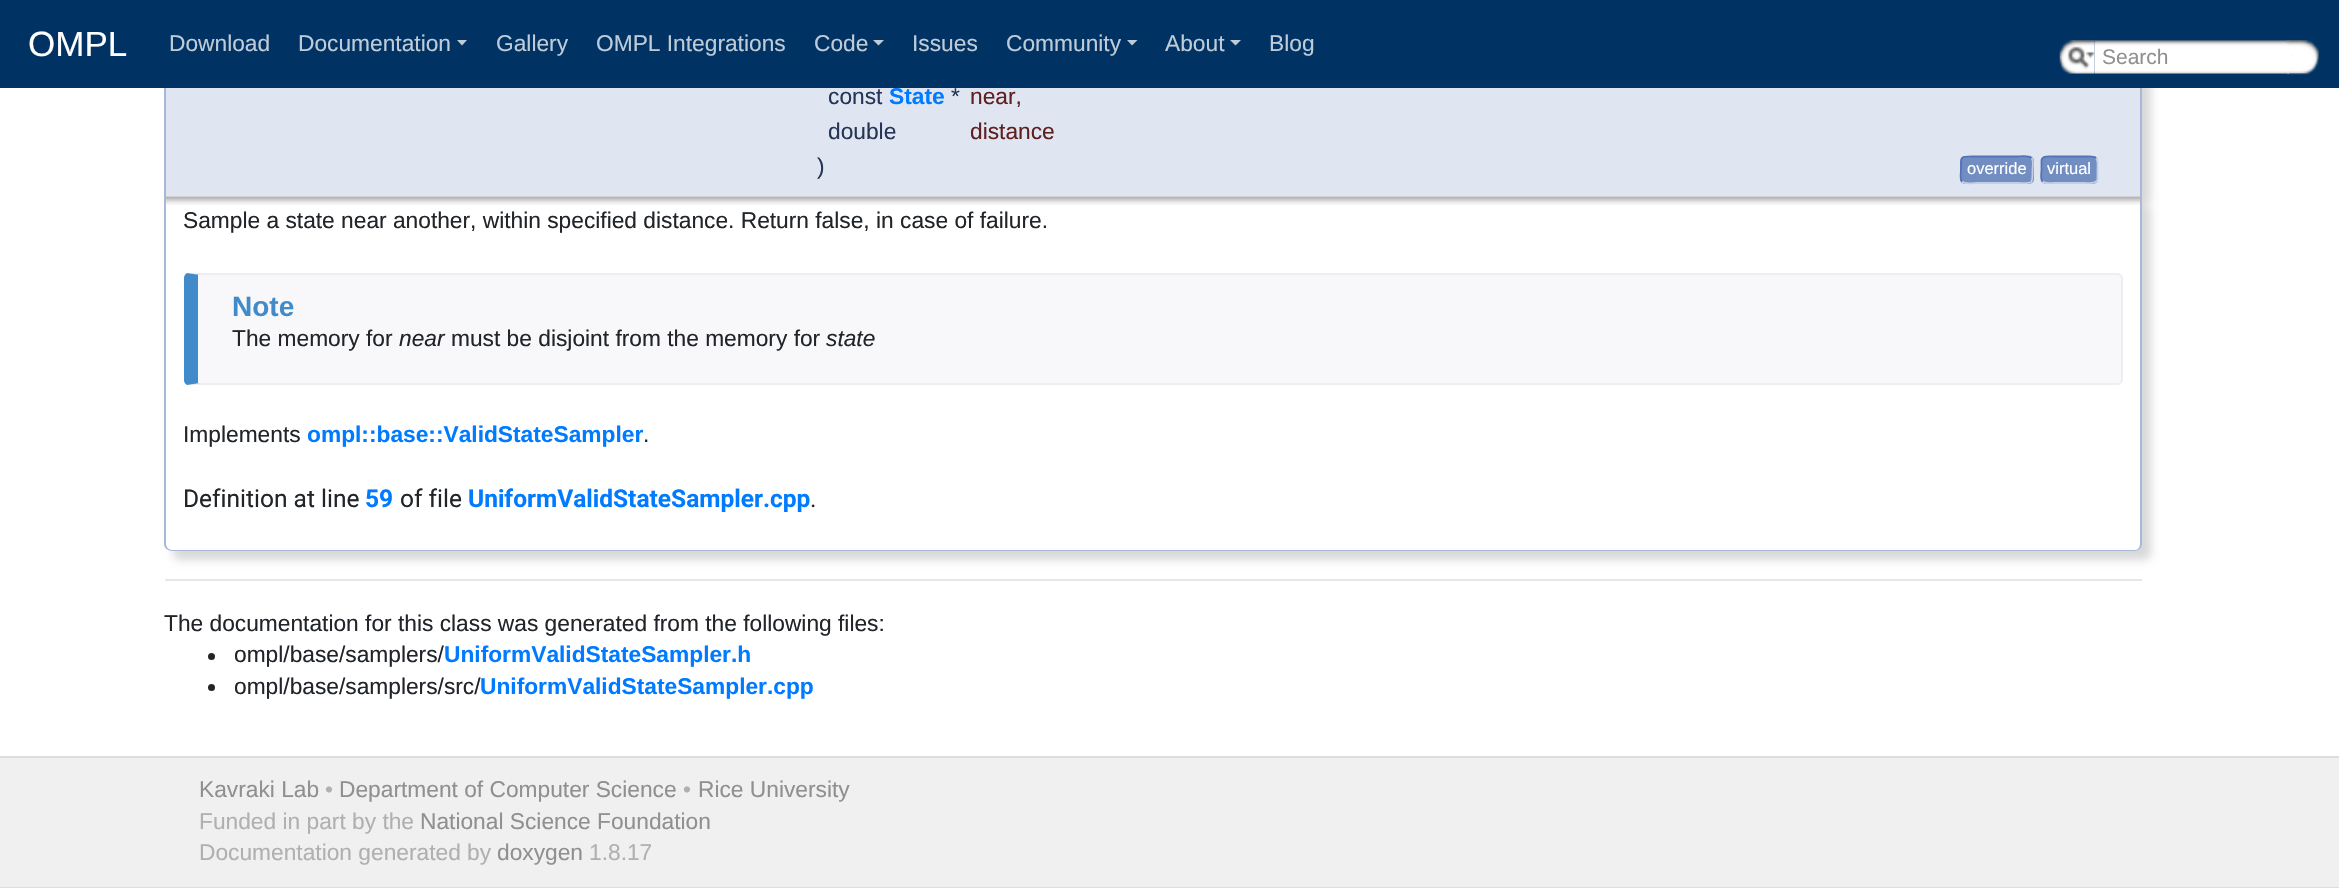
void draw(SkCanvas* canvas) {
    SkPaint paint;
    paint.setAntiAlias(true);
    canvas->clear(0xFFFFFFFF);
    paint.setColor(0x26000000);
    paint.setMaskFilter(SkMaskFilter::MakeBlur(kNormal_SkBlurStyle, 4.5f));
    canvas->drawRoundRect(SkRect::MakeXYWH(173, 42, 1978, 163), 7, 7, paint);
    paint.setMaskFilter(nullptr);
    paint.setColor(0xFFDFE5F1);
    canvas->drawRect(SkRect::MakeXYWH(166, 88, 1974, 108), paint);
    paint.setColor(0xFFA8B8D9);
    canvas->drawPath(SkPathBuilder(SkPathFillType::kEvenOdd).moveTo(164, 33).lineTo(2135, 33).cubicTo(2139, 33, 2142, 36, 2142, 40).lineTo(2142, 196).lineTo(164, 196).close().moveTo(166, 35).lineTo(2135, 35).cubicTo(2138, 35, 2140, 37, 2140, 40).lineTo(2140, 196).lineTo(166, 196).close().detach(), paint);
    paint.setColor(0xFF003363);
    canvas->drawRect(SkRect::MakeXYWH(0, 0, 2339, 88), paint);
    SkFont font1(fontMgr->matchFamilyStyle("Liberation Sans", SkFontStyle::Normal()), 35);
    font1.setSubpixel(true);
    paint.setColor(0xFFFFFFFF);
    canvas->drawString("OMPL", 28, 56, font1, paint);
    SkFont font2(fontMgr->matchFamilyStyle("Liberation Sans", SkFontStyle::Normal()), 22.75f);
    font2.setSubpixel(true);
    paint.setColor(0xFFBFCCD8);
    canvas->drawString("Download", 169, 51, font2, paint);
    canvas->drawString("Documentation", 298, 51, font2, paint);
    canvas->drawPath(SkPathBuilder().moveTo(457, 40).lineTo(467, 40).lineTo(462, 45.5f).close().detach(), paint);
    canvas->drawString("Gallery", 496, 51, font2, paint);
    canvas->drawString("OMPL Integrations", 596, 51, font2, paint);
    canvas->drawString("Code", 814, 51, font2, paint);
    canvas->drawPath(SkPathBuilder().moveTo(873, 40).lineTo(884, 40).lineTo(878.5f, 45.5f).close().detach(), paint);
    canvas->drawString("Issues", 912, 51, font2, paint);
    canvas->drawString("Community", 1006, 51, font2, paint);
    canvas->drawPath(SkPathBuilder().moveTo(1127, 40).lineTo(1137.5f, 40).lineTo(1132, 45.5f).close().detach(), paint);
    canvas->drawString("About", 1165, 51, font2, paint);
    canvas->drawPath(SkPathBuilder().moveTo(1230, 40).lineTo(1241, 40).lineTo(1235.5f, 45.5f).close().detach(), paint);
    canvas->drawString("Blog", 1269, 51, font2, paint);
    canvas->drawImageRect(SkImages::DeferredFromEncodedData(SkData::MakeFromFileName("img1.png")), SkRect::MakeXYWH(2059, 40, 36, 34), SkSamplingOptions());
    canvas->drawImageRect(SkImages::DeferredFromEncodedData(SkData::MakeFromFileName("img2.png")), SkRect::MakeXYWH(2067, 46, 28, 23), SkSamplingOptions());
    canvas->drawImageRect(SkImages::DeferredFromEncodedData(SkData::MakeFromFileName("img3.png")), SkRect::MakeXYWH(2094, 40, 195, 34), SkSamplingOptions());
    SkFont font3(fontMgr->matchFamilyStyle("Liberation Sans", SkFontStyle::Normal()), 21);
    font3.setSubpixel(true);
    paint.setColor(0xFF909090);
    canvas->drawString("Search", 2102, 64, font3, paint);
    canvas->drawImageRect(SkImages::DeferredFromEncodedData(SkData::MakeFromFileName("img4.png")), SkRect::MakeXYWH(2286, 40, 33, 35), SkSamplingOptions());
    paint.setColor(0xFF253555);
    canvas->drawString("const", 828, 104, font2, paint);
    SkFont font4(fontMgr->matchFamilyStyle("Liberation Sans", SkFontStyle::Bold()), 22.75f);
    font4.setSubpixel(true);
    paint.setColor(0xFF007BFF);
    canvas->drawString("State", 889, 104, font4, paint);
    paint.setColor(0xFF253555);
    canvas->drawString("*", 951, 104, font2, paint);
    paint.setColor(0xFF602020);
    canvas->drawString("near,", 970, 104, font2, paint);
    paint.setColor(0xFF253555);
    canvas->drawString("double", 828, 139, font2, paint);
    paint.setColor(0xFF602020);
    canvas->drawString("distance", 970, 139, font2, paint);
    paint.setColor(0xFF253555);
    canvas->drawString(")", 817, 174, font2, paint);
    paint.setColor(0xFF728DC1);
    canvas->drawRoundRect(SkRect::MakeXYWH(1960, 156, 74, 28), 5, 5, paint);
    paint.setStyle(SkPaint::kStroke_Style);
    paint.setStrokeWidth(1.8f);
    paint.setColor(0xFFC4CFE5);
    canvas->drawPath(SkPathBuilder().moveTo(2031.5f, 158).cubicTo(2034, 160.5f, 2032.5f, 166.5f, 2032.5f, 170).cubicTo(2032.5f, 184.5f, 2033.5f, 183, 2018, 183).lineTo(1976, 183).cubicTo(1974.5f, 183, 1965, 184.5f, 1962, 181.5f).detach(), paint);
    paint.setColor(0xFF5373B4);
    canvas->drawPath(SkPathBuilder().moveTo(1962, 181.5f).cubicTo(1959.5f, 179, 1961, 173, 1961, 170).cubicTo(1961, 155, 1960, 156.5f, 1976, 156.5f).lineTo(2018, 156.5f).cubicTo(2019, 156.5f, 2028.5f, 155, 2031.5f, 158).detach(), paint);
    SkFont font5(fontMgr->matchFamilyStyle("Liberation Sans", SkFontStyle::Normal()), 16.5f);
    font5.setSubpixel(true);
    paint.setStyle(SkPaint::kFill_Style);
    paint.setColor(0xFFFFFFFF);
    canvas->drawString("override", 1967, 174, font5, paint);
    paint.setColor(0xFF728DC1);
    canvas->drawRoundRect(SkRect::MakeXYWH(2041, 156, 57, 28), 5, 5, paint);
    paint.setStyle(SkPaint::kStroke_Style);
    paint.setColor(0xFFC4CFE5);
    canvas->drawPath(SkPathBuilder().moveTo(2096, 158).cubicTo(2098.5f, 160.5f, 2097.5f, 166.5f, 2097.5f, 170).lineTo(2097.5f, 179.5f).cubicTo(2096, 184.5f, 2088.5f, 183, 2085, 183).lineTo(2053.5f, 183).cubicTo(2051.5f, 183, 2045, 184, 2042.5f, 181.5f).detach(), paint);
    paint.setColor(0xFF5373B4);
    canvas->drawPath(SkPathBuilder().moveTo(2042.5f, 181.5f).cubicTo(2040, 179, 2041.5f, 173, 2041.5f, 170).lineTo(2041.5f, 160).cubicTo(2042.5f, 155, 2050.5f, 156.5f, 2053.5f, 156.5f).lineTo(2085, 156.5f).cubicTo(2087, 156.5f, 2093.5f, 155.5f, 2096, 158).detach(), paint);
    paint.setStyle(SkPaint::kFill_Style);
    paint.setColor(0xFFFFFFFF);
    canvas->drawString("virtual", 2047, 174, font5, paint);
    paint.setColor(0x26000000);
    paint.setMaskFilter(SkMaskFilter::MakeBlur(kNormal_SkBlurStyle, 4.5f));
    canvas->drawRoundRect(SkRect::MakeXYWH(173, 205, 1978, 355), 7, 7, paint);
    paint.setMaskFilter(nullptr);
    paint.setColor(0xFFFFFFFF);
    canvas->drawPath(SkPathBuilder().moveTo(165, 196).lineTo(2142, 196).lineTo(2142, 544).cubicTo(2142, 548, 2139, 551, 2135, 551).lineTo(172, 551).cubicTo(168, 551, 165, 548, 165, 544).close().detach(), paint);
    canvas->drawImageRect(SkImages::DeferredFromEncodedData(SkData::MakeFromFileName("img5.png")), SkRect::MakeXYWH(166, 196, 1974, 9), SkSamplingOptions());
    paint.setColor(0xFFA8B8D9);
    canvas->drawPath(SkPathBuilder(SkPathFillType::kEvenOdd).moveTo(164, 196).lineTo(2142, 196).lineTo(2142, 544).cubicTo(2142, 548, 2139, 551, 2135, 551).lineTo(172, 551).cubicTo(168, 551, 164, 548, 164, 544).close().moveTo(166, 196).lineTo(2140, 196).lineTo(2140, 544).cubicTo(2140, 547, 2138, 550, 2135, 550).lineTo(172, 550).cubicTo(169, 550, 166, 547, 166, 544).close().detach(), paint);
    paint.setColor(0xFF212529);
    canvas->drawString("Sample a state near another, within specified distance. Return false, in case of failure.", 183, 228, font2, paint);
    paint.setColor(0xFFF8F8FA);
    canvas->drawPath(SkPathBuilder().moveTo(198, 275).lineTo(2118, 275).cubicTo(2119, 275, 2121, 276, 2121, 278).lineTo(2121, 380).cubicTo(2121, 382, 2119, 383, 2118, 383).lineTo(198, 383).close().detach(), paint);
    paint.setColor(0xFFEEEEEE);
    canvas->drawPath(SkPathBuilder().moveTo(189, 273).lineTo(187, 273).lineTo(200, 275).lineTo(2118, 275).lineTo(2120, 276).lineTo(2121, 274).lineTo(2118, 273).close().detach(), paint);
    canvas->drawPath(SkPathBuilder().moveTo(2123, 381).lineTo(2121, 384).lineTo(2120, 382).lineTo(2121, 380).lineTo(2121, 278).lineTo(2120, 276).lineTo(2121, 274).lineTo(2123, 277).close().detach(), paint);
    canvas->drawPath(SkPathBuilder().moveTo(189, 385).lineTo(2118, 385).lineTo(2121, 384).lineTo(2120, 382).lineTo(2118, 383).lineTo(200, 383).lineTo(187, 385).close().detach(), paint);
    paint.setColor(0xFF428BCA);
    canvas->drawPath(SkPathBuilder().moveTo(198, 275).lineTo(200, 275).lineTo(187, 273).cubicTo(185, 274, 184, 276, 184, 278).lineTo(184, 380).cubicTo(184, 382, 185, 384, 187, 385).lineTo(200, 383).lineTo(198, 383).close().detach(), paint);
    SkFont font6(fontMgr->matchFamilyStyle("Liberation Sans", SkFontStyle::Bold()), 28);
    font6.setSubpixel(true);
    canvas->drawString("Note", 232, 316, font6, paint);
    paint.setColor(0xFF212529);
    canvas->drawString("The memory for", 232, 346, font2, paint);
    SkFont font7(fontMgr->matchFamilyStyle("Liberation Sans", SkFontStyle::Italic()), 22.75f);
    font7.setSubpixel(true);
    canvas->drawString("near", 399, 346, font7, paint);
    canvas->drawString("must be disjoint from the memory for", 451, 346, font2, paint);
    canvas->drawString("state", 826, 346, font7, paint);
    canvas->drawString("Implements", 183, 442, font2, paint);
    paint.setColor(0xFF007BFF);
    canvas->drawString("ompl::base::ValidStateSampler", 307, 442, font4, paint);
    paint.setColor(0xFF212529);
    canvas->drawString(".", 643, 442, font2, paint);
    SkFont font8(fontMgr->matchFamilyStyle("Roboto", SkFontStyle::Normal()), 24.5f);
    font8.setSubpixel(true);
    canvas->drawString("Definition at line", 183, 507, font8, paint);
    SkFont font9(fontMgr->matchFamilyStyle("Roboto", SkFontStyle::Bold()), 24.5f);
    font9.setSubpixel(true);
    paint.setColor(0xFF007BFF);
    canvas->drawString("59", 365, 507, font9, paint);
    paint.setColor(0xFF212529);
    canvas->drawString("of file", 400, 507, font8, paint);
    paint.setColor(0xFF007BFF);
    canvas->drawString("UniformValidStateSampler.cpp", 468, 507, font9, paint);
    paint.setColor(0xFF212529);
    canvas->drawString(".", 810, 507, font8, paint);
    paint.setColor(0xFFE6E6E6);
    canvas->drawRect(SkRect::MakeXYWH(165, 579, 1977, 2), paint);
    paint.setColor(0xFF212529);
    canvas->drawString("The documentation for this class was generated from the following files:", 164, 631, font2, paint);
    canvas->drawCircle(211.5f, 656.5f, 3.5f, paint);
    canvas->drawString("ompl/base/samplers/", 234, 662, font2, paint);
    paint.setColor(0xFF007BFF);
    canvas->drawString("UniformValidStateSampler.h", 444, 662, font4, paint);
    paint.setColor(0xFF212529);
    canvas->drawCircle(211.5f, 687.5f, 3.5f, paint);
    canvas->drawString("ompl/base/samplers/src/", 234, 694, font2, paint);
    paint.setColor(0xFF007BFF);
    canvas->drawString("UniformValidStateSampler.cpp", 480, 694, font4, paint);
    paint.setColor(0xFFF0F0F0);
    canvas->drawRect(SkRect::MakeXYWH(0, 758, 2339, 129), paint);
    paint.setColor(0xFFDDDDDD);
    canvas->drawRect(SkRect::MakeXYWH(0, 756, 2339, 2), paint);
    canvas->drawRect(SkRect::MakeXYWH(0, 887, 2339, 1), paint);
    paint.setColor(0xFF909090);
    canvas->drawString("Kavraki Lab", 199, 797, font2, paint);
    paint.setColor(0xFFB0B0B0);
    canvas->drawString("•", 325, 797, font2, paint);
    paint.setColor(0xFF909090);
    canvas->drawString("Department of Computer Science", 339, 797, font2, paint);
    paint.setColor(0xFFB0B0B0);
    canvas->drawString("•", 683, 797, font2, paint);
    paint.setColor(0xFF909090);
    canvas->drawString("Rice University", 698, 797, font2, paint);
    paint.setColor(0xFFB0B0B0);
    canvas->drawString("Funded in part by the", 199, 829, font2, paint);
    paint.setColor(0xFF909090);
    canvas->drawString("National Science Foundation", 420, 829, font2, paint);
    paint.setColor(0xFFB0B0B0);
    canvas->drawString("Documentation generated by", 199, 860, font2, paint);
    paint.setColor(0xFF909090);
    canvas->drawString("doxygen", 497, 860, font2, paint);
    paint.setColor(0xFFB0B0B0);
    canvas->drawString("1.8.17", 589, 860, font2, paint);
}
